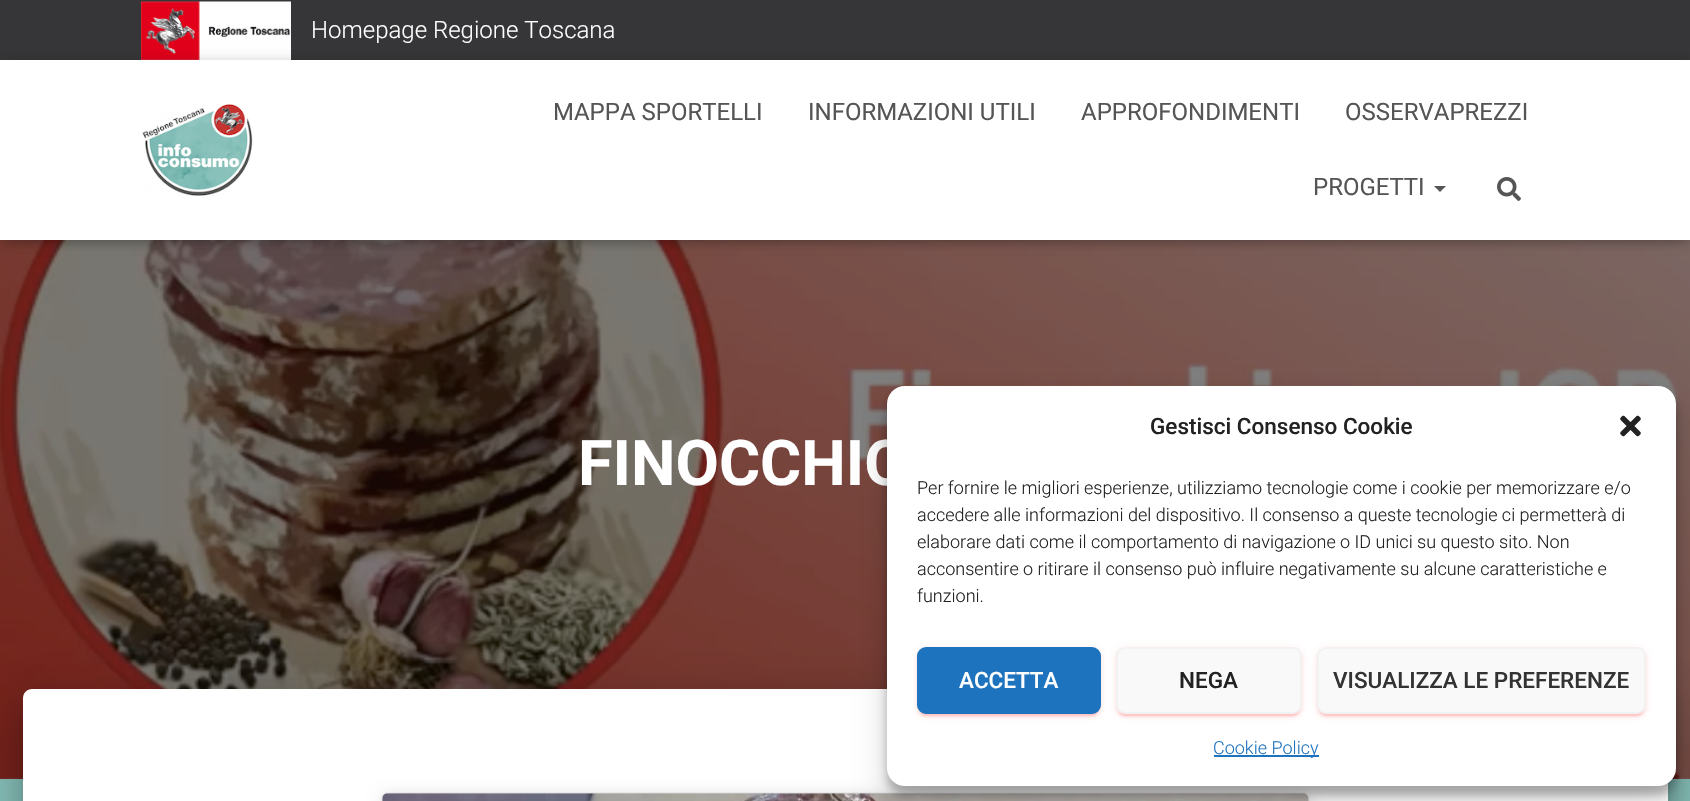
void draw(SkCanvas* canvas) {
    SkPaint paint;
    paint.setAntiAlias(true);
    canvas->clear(0xFF85BEB7);
    paint.setColor(0xFF363537);
    canvas->drawRect(SkRect::MakeXYWH(0, 0, 1690, 60), paint);
    canvas->drawImageRect(SkImages::DeferredFromEncodedData(SkData::MakeFromFileName("img1.png")), SkRect::MakeXYWH(141, 1, 150, 59), SkSamplingOptions());
    SkFont font1(fontMgr->matchFamilyStyle("Roboto", SkFontStyle(300, SkFontStyle::kNormal_Width, SkFontStyle::kUpright_Slant)), 24);
    font1.setSubpixel(true);
    paint.setColor(0xFFFFFFFF);
    canvas->drawString("Homepage Regione Toscana", 311, 38, font1, paint);
    canvas->drawImageRect(SkImages::DeferredFromEncodedData(SkData::MakeFromFileName("img4.png")), SkRect::MakeXYWH(0, 240, 1690, 539), SkSamplingOptions());
    paint.setColor(0x1A000000);
    paint.setMaskFilter(SkMaskFilter::MakeBlur(kNormal_SkBlurStyle, 4));
    canvas->drawRect(SkRect::MakeXYWH(3, 69, 1685, 174), paint);
    paint.setMaskFilter(nullptr);
    paint.setColor(0x1F000000);
    paint.setMaskFilter(SkMaskFilter::MakeBlur(kNormal_SkBlurStyle, 7.5f));
    canvas->drawRect(SkRect::MakeXYWH(0, 62, 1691, 180), paint);
    paint.setMaskFilter(nullptr);
    paint.setColor(0x6B000000);
    paint.setMaskFilter(SkMaskFilter::MakeBlur(kNormal_SkBlurStyle, 7.5f));
    canvas->drawRect(SkRect::MakeXYWH(9, 71, 1673, 162), paint);
    paint.setMaskFilter(nullptr);
    paint.setColor(0xFFFFFFFF);
    canvas->drawRect(SkRect::MakeXYWH(0, 60, 1690, 180), paint);
    canvas->drawImageRect(SkImages::DeferredFromEncodedData(SkData::MakeFromFileName("img2.png")), SkRect::MakeXYWH(142, 104, 111, 92), SkSamplingOptions());
    SkFont font2(fontMgr->matchFamilyStyle("Roboto", SkFontStyle::Normal()), 24);
    font2.setSubpixel(true);
    paint.setColor(0xFF555555);
    canvas->drawString("MAPPA SPORTELLI", 553, 120, font2, paint);
    canvas->drawString("INFORMAZIONI UTILI", 808, 120, font2, paint);
    canvas->drawString("APPROFONDIMENTI", 1081, 120, font2, paint);
    canvas->drawString("OSSERVAPREZZI", 1345, 120, font2, paint);
    canvas->drawString("PROGETTI", 1313, 195, font2, paint);
    canvas->drawPath(SkPathBuilder().moveTo(1434, 186).lineTo(1446, 186).lineTo(1440, 192).close().detach(), paint);
    canvas->drawImageRect(SkImages::DeferredFromEncodedData(SkData::MakeFromFileName("img3.png")), SkRect::MakeXYWH(1497, 177, 24, 24), SkSamplingOptions());
    SkFont font3(fontMgr->matchFamilyStyle("Roboto", SkFontStyle::Bold()), 63);
    font3.setSubpixel(true);
    paint.setColor(0xFFFFFFFF);
    canvas->drawString("FINOCCHIO", 578, 485, font3, paint);
    paint.setColor(0x33000000);
    paint.setMaskFilter(SkMaskFilter::MakeBlur(kNormal_SkBlurStyle, 7.5f));
    canvas->drawRoundRect(SkRect::MakeXYWH(30, 708, 1631, 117), 1.5f, 1.5f, paint);
    paint.setMaskFilter(nullptr);
    paint.setColor(0x1F000000);
    paint.setMaskFilter(SkMaskFilter::MakeBlur(kNormal_SkBlurStyle, 22.5f));
    canvas->drawRoundRect(SkRect::MakeXYWH(15, 690, 1661, 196), 17, 17, paint);
    paint.setMaskFilter(nullptr);
    paint.setColor(0x24000000);
    paint.setMaskFilter(SkMaskFilter::MakeBlur(kNormal_SkBlurStyle, 18));
    canvas->drawRoundRect(SkRect::MakeXYWH(20, 710, 1651, 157), 12, 12, paint);
    paint.setMaskFilter(nullptr);
    paint.setColor(0xFFFFFFFF);
    canvas->drawPath(SkPathBuilder().moveTo(32, 689).lineTo(1659, 689).cubicTo(1664, 689, 1668, 693, 1668, 698).lineTo(1668, 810).lineTo(23, 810).lineTo(23, 698).cubicTo(23, 693, 27, 689, 32, 689).close().detach(), paint);
    paint.setColor(0x26000000);
    paint.setMaskFilter(SkMaskFilter::MakeBlur(kNormal_SkBlurStyle, 7.5f));
    canvas->drawRoundRect(SkRect::MakeXYWH(383, 795, 925, 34), 5, 5, paint);
    paint.setMaskFilter(nullptr);
    paint.setColor(0x80000000);
    paint.setMaskFilter(SkMaskFilter::MakeBlur(kNormal_SkBlurStyle, 1));
    canvas->drawRoundRect(SkRect::MakeXYWH(383, 794, 925, 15), 5, 5, paint);
    paint.setMaskFilter(nullptr);
    canvas->drawImageRect(SkImages::DeferredFromEncodedData(SkData::MakeFromFileName("img5.png")), SkRect::MakeXYWH(382, 793, 926, 8), SkSamplingOptions());
    paint.setColor(0x3B000000);
    paint.setMaskFilter(SkMaskFilter::MakeBlur(kNormal_SkBlurStyle, 4.5f));
    canvas->drawRoundRect(SkRect::MakeXYWH(887, 395, 789, 400), 18, 18, paint);
    paint.setMaskFilter(nullptr);
    paint.setColor(0x30000000);
    paint.setMaskFilter(SkMaskFilter::MakeBlur(kNormal_SkBlurStyle, 15));
    canvas->drawRoundRect(SkRect::MakeXYWH(887, 401, 789, 400), 18, 18, paint);
    paint.setMaskFilter(nullptr);
    paint.setColor(0xFFFFFFFF);
    canvas->drawRoundRect(SkRect::MakeXYWH(887, 386, 789, 400), 18, 18, paint);
    SkFont font4(fontMgr->matchFamilyStyle("Roboto", SkFontStyle(500, SkFontStyle::kNormal_Width, SkFontStyle::kUpright_Slant)), 22.5f);
    font4.setSubpixel(true);
    paint.setColor(0xFF222222);
    canvas->drawString("Gestisci Consenso Cookie", 1150, 434, font4, paint);
    canvas->drawImageRect(SkImages::DeferredFromEncodedData(SkData::MakeFromFileName("img6.png")), SkRect::MakeXYWH(1620, 415, 21, 22), SkSamplingOptions());
    SkFont font5(fontMgr->matchFamilyStyle("Roboto", SkFontStyle(300, SkFontStyle::kNormal_Width, SkFontStyle::kUpright_Slant)), 18);
    font5.setSubpixel(true);
    canvas->drawString("Per fornire le migliori esperienze, utilizziamo tecnologie come i cookie per memorizzare e/o", 917, 494, font5, paint);
    canvas->drawString("accedere alle informazioni del dispositivo. Il consenso a queste tecnologie ci permetterà di", 917, 521, font5, paint);
    canvas->drawString("elaborare dati come il comportamento di navigazione o ID unici su questo sito. Non", 917, 548, font5, paint);
    canvas->drawString("acconsentire o ritirare il consenso può influire negativamente su alcune caratteristiche e", 917, 575, font5, paint);
    canvas->drawString("funzioni.", 917, 602, font5, paint);
    paint.setColor(0x1FFF5959);
    paint.setMaskFilter(SkMaskFilter::MakeBlur(kNormal_SkBlurStyle, 4));
    canvas->drawRoundRect(SkRect::MakeXYWH(917, 648, 184, 68), 9, 9, paint);
    paint.setMaskFilter(nullptr);
    paint.setColor(0x33FF5959);
    paint.setMaskFilter(SkMaskFilter::MakeBlur(kNormal_SkBlurStyle, 1));
    canvas->drawRoundRect(SkRect::MakeXYWH(920, 654, 178, 62), 6, 6, paint);
    paint.setMaskFilter(nullptr);
    paint.setColor(0x24FF5959);
    paint.setMaskFilter(SkMaskFilter::MakeBlur(kNormal_SkBlurStyle, 1.5f));
    canvas->drawRoundRect(SkRect::MakeXYWH(917, 650, 184, 67), 9, 9, paint);
    paint.setMaskFilter(nullptr);
    paint.setColor(0xFF1E73BE);
    canvas->drawRoundRect(SkRect::MakeXYWH(918, 648, 182, 65), 8, 8, paint);
    paint.setStyle(SkPaint::kStroke_Style);
    paint.setStrokeWidth(2);
    canvas->drawRoundRect(SkRect::MakeXYWH(918, 648, 182, 65), 8, 8, paint);
    paint.setStyle(SkPaint::kFill_Style);
    paint.setColor(0xFFFFFFFF);
    canvas->drawString("ACCETTA", 959, 688, font4, paint);
    paint.setColor(0x1FFF5959);
    paint.setMaskFilter(SkMaskFilter::MakeBlur(kNormal_SkBlurStyle, 4));
    canvas->drawRoundRect(SkRect::MakeXYWH(1116, 648, 186, 68), 9, 9, paint);
    paint.setMaskFilter(nullptr);
    paint.setColor(0x33FF5959);
    paint.setMaskFilter(SkMaskFilter::MakeBlur(kNormal_SkBlurStyle, 1));
    canvas->drawRoundRect(SkRect::MakeXYWH(1119, 654, 180, 62), 6, 6, paint);
    paint.setMaskFilter(nullptr);
    paint.setColor(0x24FF5959);
    paint.setMaskFilter(SkMaskFilter::MakeBlur(kNormal_SkBlurStyle, 1.5f));
    canvas->drawRoundRect(SkRect::MakeXYWH(1116, 650, 186, 67), 9, 9, paint);
    paint.setMaskFilter(nullptr);
    paint.setColor(0xFFF9F9F9);
    canvas->drawRoundRect(SkRect::MakeXYWH(1117, 648, 184, 65), 8, 8, paint);
    paint.setStyle(SkPaint::kStroke_Style);
    paint.setColor(0xFFF2F2F2);
    canvas->drawRoundRect(SkRect::MakeXYWH(1117, 648, 184, 65), 8, 8, paint);
    paint.setStyle(SkPaint::kFill_Style);
    paint.setColor(0xFF222222);
    canvas->drawString("NEGA", 1179, 688, font4, paint);
    paint.setColor(0x1FFF5959);
    paint.setMaskFilter(SkMaskFilter::MakeBlur(kNormal_SkBlurStyle, 4));
    canvas->drawRoundRect(SkRect::MakeXYWH(1317, 648, 329, 68), 9, 9, paint);
    paint.setMaskFilter(nullptr);
    paint.setColor(0x33FF5959);
    paint.setMaskFilter(SkMaskFilter::MakeBlur(kNormal_SkBlurStyle, 1));
    canvas->drawRoundRect(SkRect::MakeXYWH(1320, 654, 323, 62), 6, 6, paint);
    paint.setMaskFilter(nullptr);
    paint.setColor(0x24FF5959);
    paint.setMaskFilter(SkMaskFilter::MakeBlur(kNormal_SkBlurStyle, 1.5f));
    canvas->drawRoundRect(SkRect::MakeXYWH(1317, 650, 329, 67), 9, 9, paint);
    paint.setMaskFilter(nullptr);
    paint.setColor(0xFFF9F9F9);
    canvas->drawRoundRect(SkRect::MakeXYWH(1318, 648, 327, 65), 8, 8, paint);
    paint.setStyle(SkPaint::kStroke_Style);
    paint.setColor(0xFFF2F2F2);
    canvas->drawRoundRect(SkRect::MakeXYWH(1318, 648, 327, 65), 8, 8, paint);
    paint.setStyle(SkPaint::kFill_Style);
    paint.setColor(0xFF333333);
    canvas->drawString("VISUALIZZA LE PREFERENZE", 1333, 688, font4, paint);
    paint.setColor(0xFF1E73BE);
    canvas->drawRect(SkRect::MakeXYWH(1214, 755, 105, 2), paint);
    canvas->drawString("Cookie Policy", 1213, 754, font5, paint);
}
